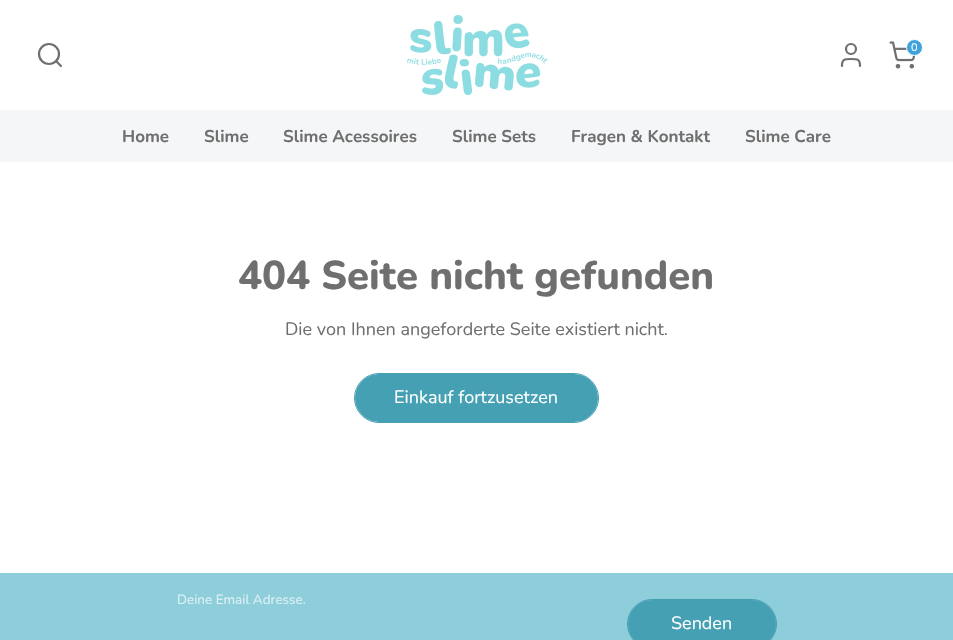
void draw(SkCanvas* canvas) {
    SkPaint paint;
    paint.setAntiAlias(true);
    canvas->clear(0xFFFFFFFF);
    paint.setStyle(SkPaint::kStroke_Style);
    paint.setStrokeWidth(2.2f);
    paint.setColor(0xFF706F6F);
    canvas->drawCircle(49, 54, 10, paint);
    paint.setStrokeCap(SkPaint::kRound_Cap);
    paint.setStrokeJoin(SkPaint::kRound_Join);
    canvas->drawPath(SkPathBuilder().moveTo(61, 66).lineTo(56, 61).detach(), paint);
    canvas->drawImageRect(SkImages::DeferredFromEncodedData(SkData::MakeFromFileName("img1.png")), SkRect::MakeXYWH(407, 15, 140, 80), SkSamplingOptions());
    canvas->drawPath(SkPathBuilder().moveTo(860, 66).cubicTo(860, 59, 857.5f, 59, 851, 59).cubicTo(844.5f, 59, 842, 59, 842, 66).detach(), paint);
    paint.setStrokeCap(SkPaint::kButt_Cap);
    paint.setStrokeJoin(SkPaint::kMiter_Join);
    canvas->drawCircle(851, 49, 5, paint);
    canvas->drawImageRect(SkImages::DeferredFromEncodedData(SkData::MakeFromFileName("img2.png")), SkRect::MakeXYWH(889, 41, 27, 28), SkSamplingOptions());
    paint.setStyle(SkPaint::kFill_Style);
    paint.setColor(0xFF3FA3DC);
    canvas->drawCircle(914.5f, 47.5f, 8, paint);
    paint.setStyle(SkPaint::kStroke_Style);
    paint.setStrokeWidth(1);
    paint.setColor(0xFFFFFFFF);
    canvas->drawCircle(914.5f, 47.5f, 8, paint);
    SkFont font1(fontMgr->matchFamilyStyle("Nunito", SkFontStyle::Normal()), 11);
    font1.setSubpixel(true);
    paint.setStyle(SkPaint::kFill_Style);
    canvas->drawString("0", 911, 51, font1, paint);
    paint.setColor(0xFFF4F6F8);
    canvas->drawRect(SkRect::MakeXYWH(0, 110, 953, 52), paint);
    SkFont font2(fontMgr->matchFamilyStyle("Nunito", SkFontStyle::Bold()), 17);
    font2.setSubpixel(true);
    paint.setColor(0xFF706F6F);
    canvas->drawString("Home", 122, 142, font2, paint);
    canvas->drawString("Slime", 204, 142, font2, paint);
    canvas->drawString("Slime Acessoires", 283, 142, font2, paint);
    canvas->drawString("Slime Sets", 452, 142, font2, paint);
    canvas->drawString("Fragen & Kontakt", 571, 142, font2, paint);
    canvas->drawString("Slime Care", 745, 142, font2, paint);
    SkFont font3(fontMgr->matchFamilyStyle("Nunito", SkFontStyle(800, SkFontStyle::kNormal_Width, SkFontStyle::kUpright_Slant)), 40.1f);
    font3.setSubpixel(true);
    canvas->drawString("404 Seite nicht gefunden", 238, 289, font3, paint);
    SkFont font4(fontMgr->matchFamilyStyle("Nunito", SkFontStyle::Normal()), 18);
    font4.setSubpixel(true);
    canvas->drawString("Die von Ihnen angeforderte Seite existiert nicht.", 285, 335, font4, paint);
    paint.setStyle(SkPaint::kStroke_Style);
    paint.setColor(0xFF45A0B4);
    canvas->drawRoundRect(SkRect::MakeXYWH(354.5f, 373.5f, 244, 49), 24.5f, 24.5f, paint);
    paint.setStyle(SkPaint::kFill_Style);
    canvas->drawRoundRect(SkRect::MakeXYWH(355, 374, 243, 48), 24, 24, paint);
    paint.setColor(0xFFFFFFFF);
    canvas->drawString("Einkauf fortzusetzen", 394, 403, font4, paint);
    paint.setColor(0xFF8ECDDA);
    canvas->drawRect(SkRect::MakeXYWH(0, 573, 953, 67), paint);
    SkFont font5(fontMgr->matchFamilyStyle("Nunito", SkFontStyle::Normal()), 13.5f);
    font5.setSubpixel(true);
    paint.setColor(0xFFDDF0F4);
    canvas->drawString("Deine Email Adresse.", 177, 604, font5, paint);
    paint.setStyle(SkPaint::kStroke_Style);
    paint.setColor(0xFF45A0B4);
    canvas->drawRoundRect(SkRect::MakeXYWH(627.5f, 599.5f, 149, 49), 24.5f, 24.5f, paint);
    paint.setStyle(SkPaint::kFill_Style);
    canvas->drawRoundRect(SkRect::MakeXYWH(628, 600, 148, 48), 24, 24, paint);
    paint.setColor(0xFFFFFFFF);
    canvas->drawString("Senden", 671, 629, font4, paint);
}
